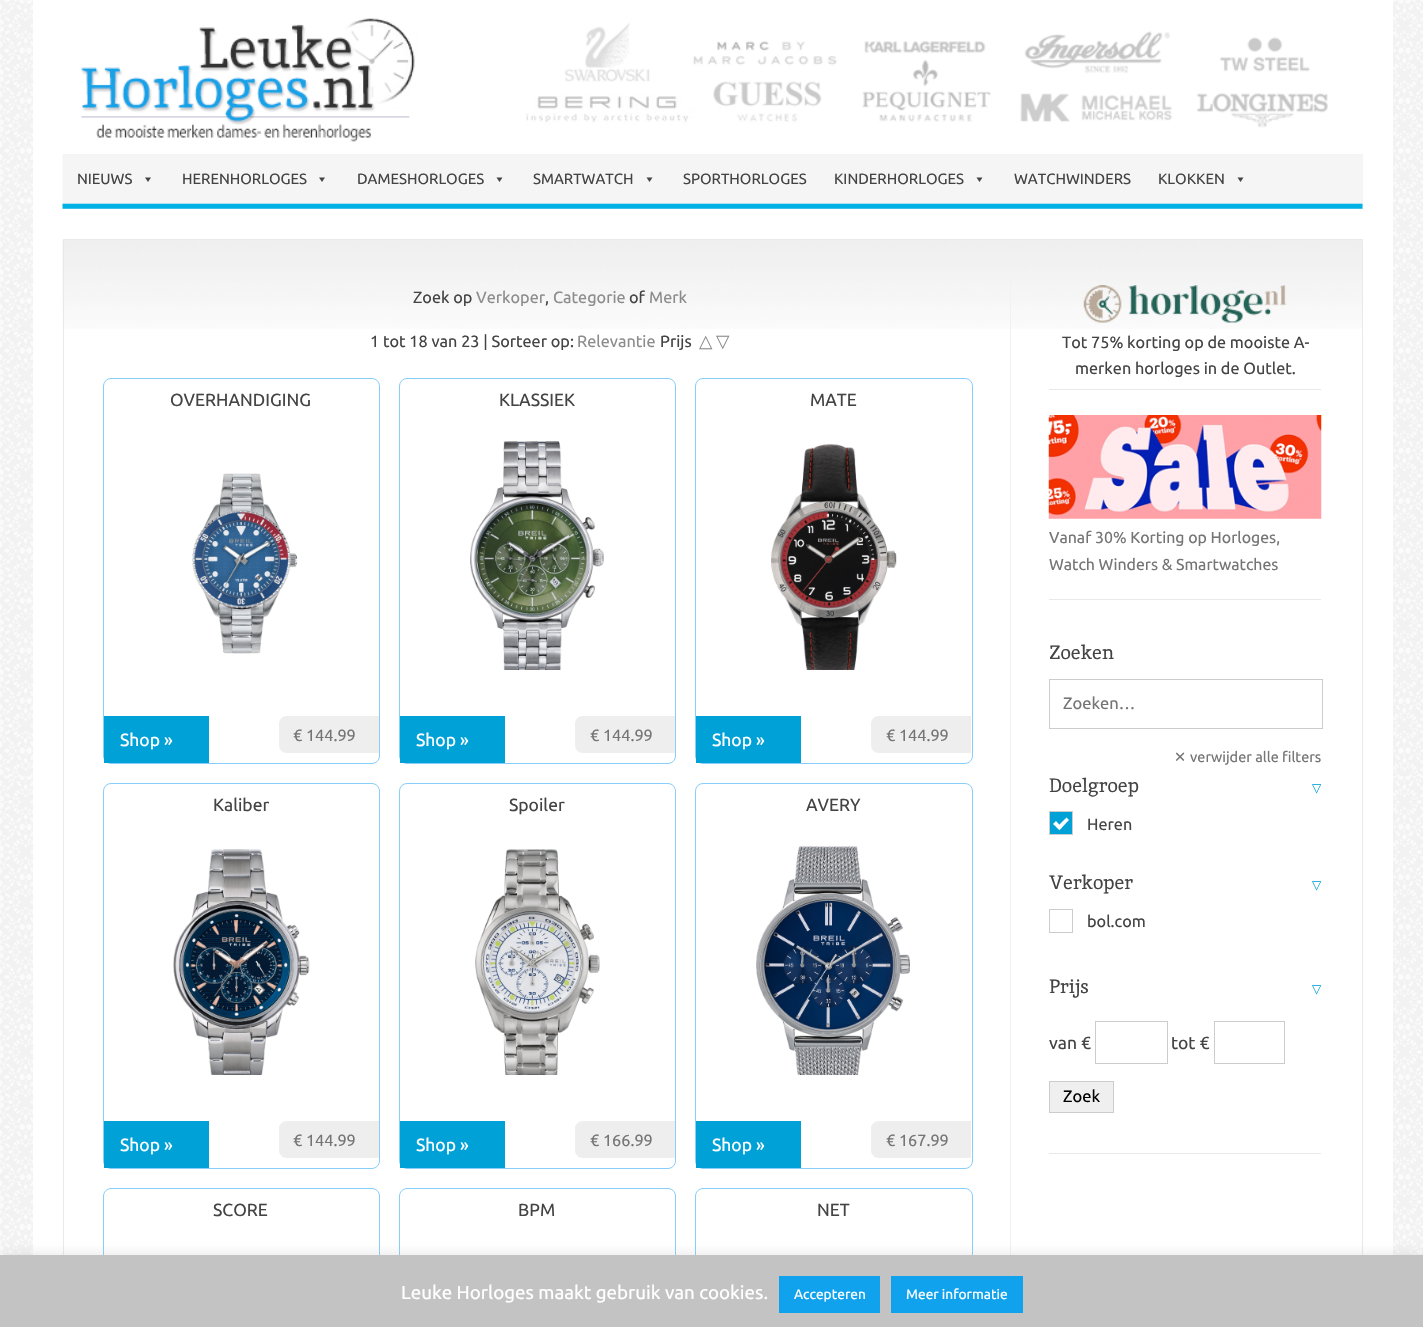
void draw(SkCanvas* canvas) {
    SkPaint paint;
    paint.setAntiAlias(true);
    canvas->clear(0xFFFFFFFF);
    canvas->drawImageRect(SkImages::DeferredFromEncodedData(SkData::MakeFromFileName("img1.png")), SkRect::MakeXYWH(0, 0, 1423, 1255), SkSamplingOptions());
    paint.setColor(0xFFFFFFFF);
    canvas->drawRect(SkRect::MakeXYWH(33, 0, 1360, 1255), paint);
    canvas->drawImageRect(SkImages::DeferredFromEncodedData(SkData::MakeFromFileName("img2.png")), SkRect::MakeXYWH(81, 18, 1247, 124), SkSamplingOptions());
    paint.setColor(0xFFF3F3F3);
    canvas->drawRect(SkRect::MakeXYWH(63, 154, 1300, 55), paint);
    canvas->drawImageRect(SkImages::DeferredFromEncodedData(SkData::MakeFromFileName("img3.png")), SkRect::MakeXYWH(62, 154, 1301, 55), SkSamplingOptions());
    SkFont font1(fontMgr->matchFamilyStyle("Ubuntu", SkFontStyle::Normal()), 14.9f);
    font1.setSubpixel(true);
    paint.setColor(0xFF444444);
    canvas->drawString("NIEUWS", 77, 184, font1, paint);
    canvas->drawPath(SkPathBuilder().moveTo(151, 177.5f).lineTo(148, 182).lineTo(145, 177.5f).close().detach(), paint);
    canvas->drawString("HERENHORLOGES", 182, 184, font1, paint);
    canvas->drawPath(SkPathBuilder().moveTo(325, 177.5f).lineTo(322, 182).lineTo(319, 177.5f).close().detach(), paint);
    canvas->drawString("DAMESHORLOGES", 357, 184, font1, paint);
    canvas->drawPath(SkPathBuilder().moveTo(502.5f, 177.5f).lineTo(499.5f, 182).lineTo(496.5f, 177.5f).close().detach(), paint);
    canvas->drawString("SMARTWATCH", 533, 184, font1, paint);
    canvas->drawPath(SkPathBuilder().moveTo(652.5f, 177.5f).lineTo(649.5f, 182).lineTo(646.5f, 177.5f).close().detach(), paint);
    canvas->drawString("SPORTHORLOGES", 683, 184, font1, paint);
    canvas->drawString("KINDERHORLOGES", 834, 184, font1, paint);
    canvas->drawPath(SkPathBuilder().moveTo(982.5f, 177.5f).lineTo(979.5f, 182).lineTo(976.5f, 177.5f).close().detach(), paint);
    canvas->drawString("WATCHWINDERS", 1014, 184, font1, paint);
    canvas->drawString("KLOKKEN", 1158, 184, font1, paint);
    canvas->drawPath(SkPathBuilder().moveTo(1243.5f, 177.5f).lineTo(1240.5f, 182).lineTo(1237.5f, 177.5f).close().detach(), paint);
    canvas->drawImageRect(SkImages::DeferredFromEncodedData(SkData::MakeFromFileName("img4.png")), SkRect::MakeXYWH(62, 240, 1300, 89), SkSamplingOptions());
    paint.setStyle(SkPaint::kStroke_Style);
    paint.setStrokeWidth(1);
    paint.setColor(0xFFE9E9E9);
    canvas->drawRect(SkRect::MakeXYWH(63.5f, 239.5f, 1299, 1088), paint);
    paint.setStyle(SkPaint::kFill_Style);
    paint.setColor(0xFFF1F1F1);
    canvas->drawRect(SkRect::MakeXYWH(1010, 279, 1, 976), paint);
    SkFont font2(fontMgr->matchFamilyStyle("Ubuntu", SkFontStyle::Normal()), 16.25f);
    font2.setSubpixel(true);
    paint.setColor(0xFF444444);
    canvas->drawString("Zoek op", 413, 303, font2, paint);
    paint.setColor(0xFF8C8C8C);
    canvas->drawString("Verkoper", 476, 303, font2, paint);
    paint.setColor(0xFF444444);
    canvas->drawString(",", 545, 303, font2, paint);
    paint.setColor(0xFF8C8C8C);
    canvas->drawString("Categorie", 553, 303, font2, paint);
    paint.setColor(0xFF444444);
    canvas->drawString("of", 629, 303, font2, paint);
    paint.setColor(0xFF8C8C8C);
    canvas->drawString("Merk", 649, 303, font2, paint);
    paint.setColor(0xFF444444);
    canvas->drawString("1 tot 18 van 23 | Sorteer op:", 370, 347, font2, paint);
    paint.setColor(0xFF8C8C8C);
    canvas->drawString("Relevantie", 577, 347, font2, paint);
    paint.setColor(0xFF444444);
    canvas->drawString("Prijs", 660, 347, font2, paint);
    SkFont font3(fontMgr->matchFamilyStyle("DejaVu Sans", SkFontStyle::Normal()), 17.5f);
    font3.setSubpixel(true);
    paint.setColor(0xFF8C8C8C);
    canvas->drawString("△", 699, 347, font3, paint);
    canvas->drawString("▽", 716, 347, font3, paint);
    paint.setStyle(SkPaint::kStroke_Style);
    paint.setColor(0xFF87CEFA);
    canvas->drawRoundRect(SkRect::MakeXYWH(103.5f, 378.5f, 276, 385), 7.5f, 7.5f, paint);
    SkFont font4(fontMgr->matchFamilyStyle("Ubuntu", SkFontStyle::Normal()), 17.5f);
    font4.setSubpixel(true);
    paint.setStyle(SkPaint::kFill_Style);
    paint.setColor(0xFF444444);
    canvas->drawString("OVERHANDIGING", 170, 406, font4, paint);
    canvas->drawImageRect(SkImages::DeferredFromEncodedData(SkData::MakeFromFileName("img5.png")), SkRect::MakeXYWH(192, 473, 106, 181), SkSamplingOptions());
    paint.setColor(0xFF00A1D7);
    canvas->drawRect(SkRect::MakeXYWH(104, 716, 105, 47), paint);
    paint.setColor(0xFFFFFFFF);
    canvas->drawString("Shop »", 120, 746, font4, paint);
    paint.setColor(0xFFEEEEEE);
    canvas->drawPath(SkPathBuilder().moveTo(287, 716).lineTo(379, 716).lineTo(379, 753).lineTo(287, 753).cubicTo(282.5f, 753, 279, 749.5f, 279, 745).lineTo(279, 724).cubicTo(279, 719.5f, 282.5f, 716, 287, 716).close().detach(), paint);
    paint.setColor(0xFF757575);
    canvas->drawString("€ 144.99", 293, 741, font2, paint);
    paint.setStyle(SkPaint::kStroke_Style);
    paint.setColor(0xFF87CEFA);
    canvas->drawRoundRect(SkRect::MakeXYWH(399.5f, 378.5f, 276, 385), 7.5f, 7.5f, paint);
    paint.setStyle(SkPaint::kFill_Style);
    paint.setColor(0xFF444444);
    canvas->drawString("KLASSIEK", 499, 406, font4, paint);
    canvas->drawImageRect(SkImages::DeferredFromEncodedData(SkData::MakeFromFileName("img6.png")), SkRect::MakeXYWH(470, 441, 134, 229), SkSamplingOptions());
    paint.setColor(0xFF00A1D7);
    canvas->drawRect(SkRect::MakeXYWH(400, 716, 105, 47), paint);
    paint.setColor(0xFFFFFFFF);
    canvas->drawString("Shop »", 416, 746, font4, paint);
    paint.setColor(0xFFEEEEEE);
    canvas->drawPath(SkPathBuilder().moveTo(583, 716).lineTo(675, 716).lineTo(675, 753).lineTo(583, 753).cubicTo(578.5f, 753, 575, 749.5f, 575, 745).lineTo(575, 724).cubicTo(575, 719.5f, 578.5f, 716, 583, 716).close().detach(), paint);
    paint.setColor(0xFF757575);
    canvas->drawString("€ 144.99", 590, 741, font2, paint);
    paint.setStyle(SkPaint::kStroke_Style);
    paint.setColor(0xFF87CEFA);
    canvas->drawRoundRect(SkRect::MakeXYWH(695.5f, 378.5f, 277, 385), 7.5f, 7.5f, paint);
    paint.setStyle(SkPaint::kFill_Style);
    paint.setColor(0xFF444444);
    canvas->drawString("MATE", 810, 406, font4, paint);
    canvas->drawImageRect(SkImages::DeferredFromEncodedData(SkData::MakeFromFileName("img7.png")), SkRect::MakeXYWH(770, 444, 127, 226), SkSamplingOptions());
    paint.setColor(0xFF00A1D7);
    canvas->drawRect(SkRect::MakeXYWH(696, 716, 105, 47), paint);
    paint.setColor(0xFFFFFFFF);
    canvas->drawString("Shop »", 712, 746, font4, paint);
    paint.setColor(0xFFEEEEEE);
    canvas->drawPath(SkPathBuilder().moveTo(879, 716).lineTo(971, 716).lineTo(971, 753).lineTo(879, 753).cubicTo(874.5f, 753, 871, 749.5f, 871, 745).lineTo(871, 724).cubicTo(871, 719.5f, 874.5f, 716, 879, 716).close().detach(), paint);
    paint.setColor(0xFF757575);
    canvas->drawString("€ 144.99", 886, 741, font2, paint);
    paint.setStyle(SkPaint::kStroke_Style);
    paint.setColor(0xFF87CEFA);
    canvas->drawRoundRect(SkRect::MakeXYWH(103.5f, 783.5f, 276, 385), 7.5f, 7.5f, paint);
    paint.setStyle(SkPaint::kFill_Style);
    paint.setColor(0xFF444444);
    canvas->drawString("Kaliber", 213, 811, font4, paint);
    canvas->drawImageRect(SkImages::DeferredFromEncodedData(SkData::MakeFromFileName("img8.png")), SkRect::MakeXYWH(173, 849, 137, 226), SkSamplingOptions());
    paint.setColor(0xFF00A1D7);
    canvas->drawRect(SkRect::MakeXYWH(104, 1121, 105, 47), paint);
    paint.setColor(0xFFFFFFFF);
    canvas->drawString("Shop »", 120, 1151, font4, paint);
    paint.setColor(0xFFEEEEEE);
    canvas->drawPath(SkPathBuilder().moveTo(287, 1121).lineTo(379, 1121).lineTo(379, 1158).lineTo(287, 1158).cubicTo(282.5f, 1158, 279, 1154.5f, 279, 1150).lineTo(279, 1129).cubicTo(279, 1124.5f, 282.5f, 1121, 287, 1121).close().detach(), paint);
    paint.setColor(0xFF757575);
    canvas->drawString("€ 144.99", 293, 1146, font2, paint);
    paint.setStyle(SkPaint::kStroke_Style);
    paint.setColor(0xFF87CEFA);
    canvas->drawRoundRect(SkRect::MakeXYWH(399.5f, 783.5f, 276, 385), 7.5f, 7.5f, paint);
    paint.setStyle(SkPaint::kFill_Style);
    paint.setColor(0xFF444444);
    canvas->drawString("Spoiler", 509, 811, font4, paint);
    canvas->drawImageRect(SkImages::DeferredFromEncodedData(SkData::MakeFromFileName("img9.png")), SkRect::MakeXYWH(475, 849, 125, 226), SkSamplingOptions());
    paint.setColor(0xFF00A1D7);
    canvas->drawRect(SkRect::MakeXYWH(400, 1121, 105, 47), paint);
    paint.setColor(0xFFFFFFFF);
    canvas->drawString("Shop »", 416, 1151, font4, paint);
    paint.setColor(0xFFEEEEEE);
    canvas->drawPath(SkPathBuilder().moveTo(583, 1121).lineTo(675, 1121).lineTo(675, 1158).lineTo(583, 1158).cubicTo(578.5f, 1158, 575, 1154.5f, 575, 1150).lineTo(575, 1129).cubicTo(575, 1124.5f, 578.5f, 1121, 583, 1121).close().detach(), paint);
    paint.setColor(0xFF757575);
    canvas->drawString("€ 166.99", 590, 1146, font2, paint);
    paint.setStyle(SkPaint::kStroke_Style);
    paint.setColor(0xFF87CEFA);
    canvas->drawRoundRect(SkRect::MakeXYWH(695.5f, 783.5f, 277, 385), 7.5f, 7.5f, paint);
    paint.setStyle(SkPaint::kFill_Style);
    paint.setColor(0xFF444444);
    canvas->drawString("AVERY", 806, 811, font4, paint);
    canvas->drawImageRect(SkImages::DeferredFromEncodedData(SkData::MakeFromFileName("img10.png")), SkRect::MakeXYWH(756, 846, 154, 229), SkSamplingOptions());
    paint.setColor(0xFF00A1D7);
    canvas->drawRect(SkRect::MakeXYWH(696, 1121, 105, 47), paint);
    paint.setColor(0xFFFFFFFF);
    canvas->drawString("Shop »", 712, 1151, font4, paint);
    paint.setColor(0xFFEEEEEE);
    canvas->drawPath(SkPathBuilder().moveTo(879, 1121).lineTo(971, 1121).lineTo(971, 1158).lineTo(879, 1158).cubicTo(874.5f, 1158, 871, 1154.5f, 871, 1150).lineTo(871, 1129).cubicTo(871, 1124.5f, 874.5f, 1121, 879, 1121).close().detach(), paint);
    paint.setColor(0xFF757575);
    canvas->drawString("€ 167.99", 886, 1146, font2, paint);
    paint.setStyle(SkPaint::kStroke_Style);
    paint.setColor(0xFF87CEFA);
    canvas->drawRoundRect(SkRect::MakeXYWH(103.5f, 1188.5f, 276, 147), 7.5f, 7.5f, paint);
    paint.setStyle(SkPaint::kFill_Style);
    paint.setColor(0xFF444444);
    canvas->drawString("SCORE", 213, 1216, font4, paint);
    paint.setStyle(SkPaint::kStroke_Style);
    paint.setColor(0xFF87CEFA);
    canvas->drawRoundRect(SkRect::MakeXYWH(399.5f, 1188.5f, 276, 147), 7.5f, 7.5f, paint);
    paint.setStyle(SkPaint::kFill_Style);
    paint.setColor(0xFF444444);
    canvas->drawString("BPM", 518, 1216, font4, paint);
    paint.setStyle(SkPaint::kStroke_Style);
    paint.setColor(0xFF87CEFA);
    canvas->drawRoundRect(SkRect::MakeXYWH(695.5f, 1188.5f, 277, 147), 7.5f, 7.5f, paint);
    paint.setStyle(SkPaint::kFill_Style);
    paint.setColor(0xFF444444);
    canvas->drawString("NET", 817, 1216, font4, paint);
    paint.setColor(0xFFE9E9E9);
    canvas->drawRect(SkRect::MakeXYWH(1049, 389, 272, 1), paint);
    canvas->drawImageRect(SkImages::DeferredFromEncodedData(SkData::MakeFromFileName("img11.png")), SkRect::MakeXYWH(1083, 285, 204, 38), SkSamplingOptions());
    paint.setColor(0xFF444444);
    canvas->drawString("Tot 75% korting op de mooiste A-", 1062, 348, font2, paint);
    canvas->drawString("merken horloges in de Outlet.", 1075, 374, font2, paint);
    paint.setColor(0xFFE9E9E9);
    canvas->drawRect(SkRect::MakeXYWH(1049, 599, 272, 1), paint);
    canvas->drawImageRect(SkImages::DeferredFromEncodedData(SkData::MakeFromFileName("img12.png")), SkRect::MakeXYWH(1048, 415, 274, 104), SkSamplingOptions());
    SkFont font5(fontMgr->matchFamilyStyle("Ubuntu", SkFontStyle::Normal()), 15.9f);
    font5.setSubpixel(true);
    paint.setColor(0xFF757575);
    canvas->drawString("Vanaf 30% Korting op Horloges,", 1049, 543, font5, paint);
    canvas->drawString("Watch Winders & Smartwatches", 1049, 570, font5, paint);
    SkFont font6(fontMgr->matchFamilyStyle("Inika", SkFontStyle::Normal()), 19.25f);
    font6.setSubpixel(true);
    paint.setColor(0xFF444444);
    canvas->drawString("Zoeken", 1049, 659, font6, paint);
    paint.setStyle(SkPaint::kStroke_Style);
    paint.setColor(0xFFCCCCCC);
    canvas->drawRect(SkRect::MakeXYWH(1049.5f, 679.5f, 273, 49), paint);
    SkFont font7(fontMgr->matchFamilyStyle("Ubuntu", SkFontStyle::Normal()), 16.5f);
    font7.setSubpixel(true);
    paint.setStyle(SkPaint::kFill_Style);
    paint.setColor(0xFF757575);
    canvas->drawString("Zoeken…", 1063, 709, font7, paint);
    SkFont font8(fontMgr->matchFamilyStyle("DejaVu Sans", SkFontStyle::Normal()), 14.5f);
    font8.setSubpixel(true);
    canvas->drawString("✕", 1174, 762, font8, paint);
    SkFont font9(fontMgr->matchFamilyStyle("Ubuntu", SkFontStyle::Normal()), 14.5f);
    font9.setSubpixel(true);
    canvas->drawString("verwijder alle filters", 1190, 762, font9, paint);
    paint.setColor(0xFF444444);
    canvas->drawString("Doelgroep", 1049, 792, font6, paint);
    SkFont font10(fontMgr->matchFamilyStyle("DejaVu Sans", SkFontStyle::Normal()), 12);
    font10.setSubpixel(true);
    paint.setColor(0xFF00A1D7);
    canvas->drawString("▽", 1312, 792, font10, paint);
    canvas->drawRect(SkRect::MakeXYWH(1049.5f, 811.5f, 23, 23), paint);
    paint.setStyle(SkPaint::kStroke_Style);
    paint.setColor(0xFFCCCCCC);
    canvas->drawRect(SkRect::MakeXYWH(1049.5f, 811.5f, 23, 23), paint);
    paint.setStyle(SkPaint::kFill_Style);
    paint.setColor(0xFFFFFFFF);
    canvas->drawPath(SkPathBuilder().moveTo(1066.5f, 817.5f).lineTo(1069, 820).lineTo(1059.5f, 830).lineTo(1056.5f, 827.5f).close().detach(), paint);
    canvas->drawPath(SkPathBuilder().moveTo(1056, 821).lineTo(1062, 827.5f).lineTo(1059.5f, 830).lineTo(1053, 824).close().detach(), paint);
    paint.setColor(0xFF444444);
    canvas->drawString("Heren", 1087, 830, font2, paint);
    canvas->drawString("Verkoper", 1049, 889, font6, paint);
    paint.setColor(0xFF00A1D7);
    canvas->drawString("▽", 1312, 889, font10, paint);
    paint.setStyle(SkPaint::kStroke_Style);
    paint.setColor(0xFFCCCCCC);
    canvas->drawRect(SkRect::MakeXYWH(1049.5f, 909.5f, 23, 23), paint);
    paint.setStyle(SkPaint::kFill_Style);
    paint.setColor(0xFF444444);
    canvas->drawString("bol.com", 1087, 927, font2, paint);
    canvas->drawString("Prijs", 1049, 993, font6, paint);
    paint.setColor(0xFF00A1D7);
    canvas->drawString("▽", 1312, 993, font10, paint);
    paint.setColor(0xFF444444);
    canvas->drawString("van €", 1049, 1049, font4, paint);
    paint.setStyle(SkPaint::kStroke_Style);
    paint.setColor(0xFFCCCCCC);
    canvas->drawRect(SkRect::MakeXYWH(1095.5f, 1021.5f, 72, 42), paint);
    paint.setStyle(SkPaint::kFill_Style);
    paint.setColor(0xFF444444);
    canvas->drawString("tot €", 1171, 1049, font4, paint);
    paint.setStyle(SkPaint::kStroke_Style);
    paint.setColor(0xFFCCCCCC);
    canvas->drawRect(SkRect::MakeXYWH(1214.5f, 1021.5f, 70, 42), paint);
    paint.setStyle(SkPaint::kFill_Style);
    paint.setColor(0xFFEFEFEF);
    canvas->drawRect(SkRect::MakeXYWH(1049.5f, 1081.5f, 64, 31), paint);
    paint.setStyle(SkPaint::kStroke_Style);
    paint.setColor(0xFFCCCCCC);
    canvas->drawRect(SkRect::MakeXYWH(1049.5f, 1081.5f, 64, 31), paint);
    paint.setStyle(SkPaint::kFill_Style);
    paint.setColor(0xFF000000);
    canvas->drawString("Zoek", 1063, 1102, font7, paint);
    paint.setColor(0xFFE9E9E9);
    canvas->drawRect(SkRect::MakeXYWH(1049, 1153, 272, 1), paint);
    paint.setColor(0x4DACABAB);
    paint.setMaskFilter(SkMaskFilter::MakeBlur(kNormal_SkBlurStyle, 6));
    canvas->drawRect(SkRect::MakeXYWH(0, 1254, 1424, 72), paint);
    paint.setMaskFilter(nullptr);
    paint.setColor(0xFFC3C3C3);
    canvas->drawRect(SkRect::MakeXYWH(0, 1255, 1423, 72), paint);
    SkFont font11(fontMgr->matchFamilyStyle("Ubuntu", SkFontStyle::Normal()), 18.75f);
    font11.setSubpixel(true);
    paint.setColor(0xFFFFFFFF);
    canvas->drawString("Leuke Horloges maakt gebruik van cookies.", 401, 1299, font11, paint);
    paint.setColor(0xFF11A2EE);
    canvas->drawRect(SkRect::MakeXYWH(779, 1276, 101, 37), paint);
    SkFont font12(fontMgr->matchFamilyStyle("Ubuntu", SkFontStyle::Normal()), 13.75f);
    font12.setSubpixel(true);
    paint.setColor(0xFFFFFFFF);
    canvas->drawString("Accepteren", 794, 1299, font12, paint);
    paint.setColor(0xFF11A2EE);
    canvas->drawRect(SkRect::MakeXYWH(891, 1276, 132, 37), paint);
    paint.setColor(0xFFFFFFFF);
    canvas->drawString("Meer informatie", 906, 1299, font12, paint);
}
